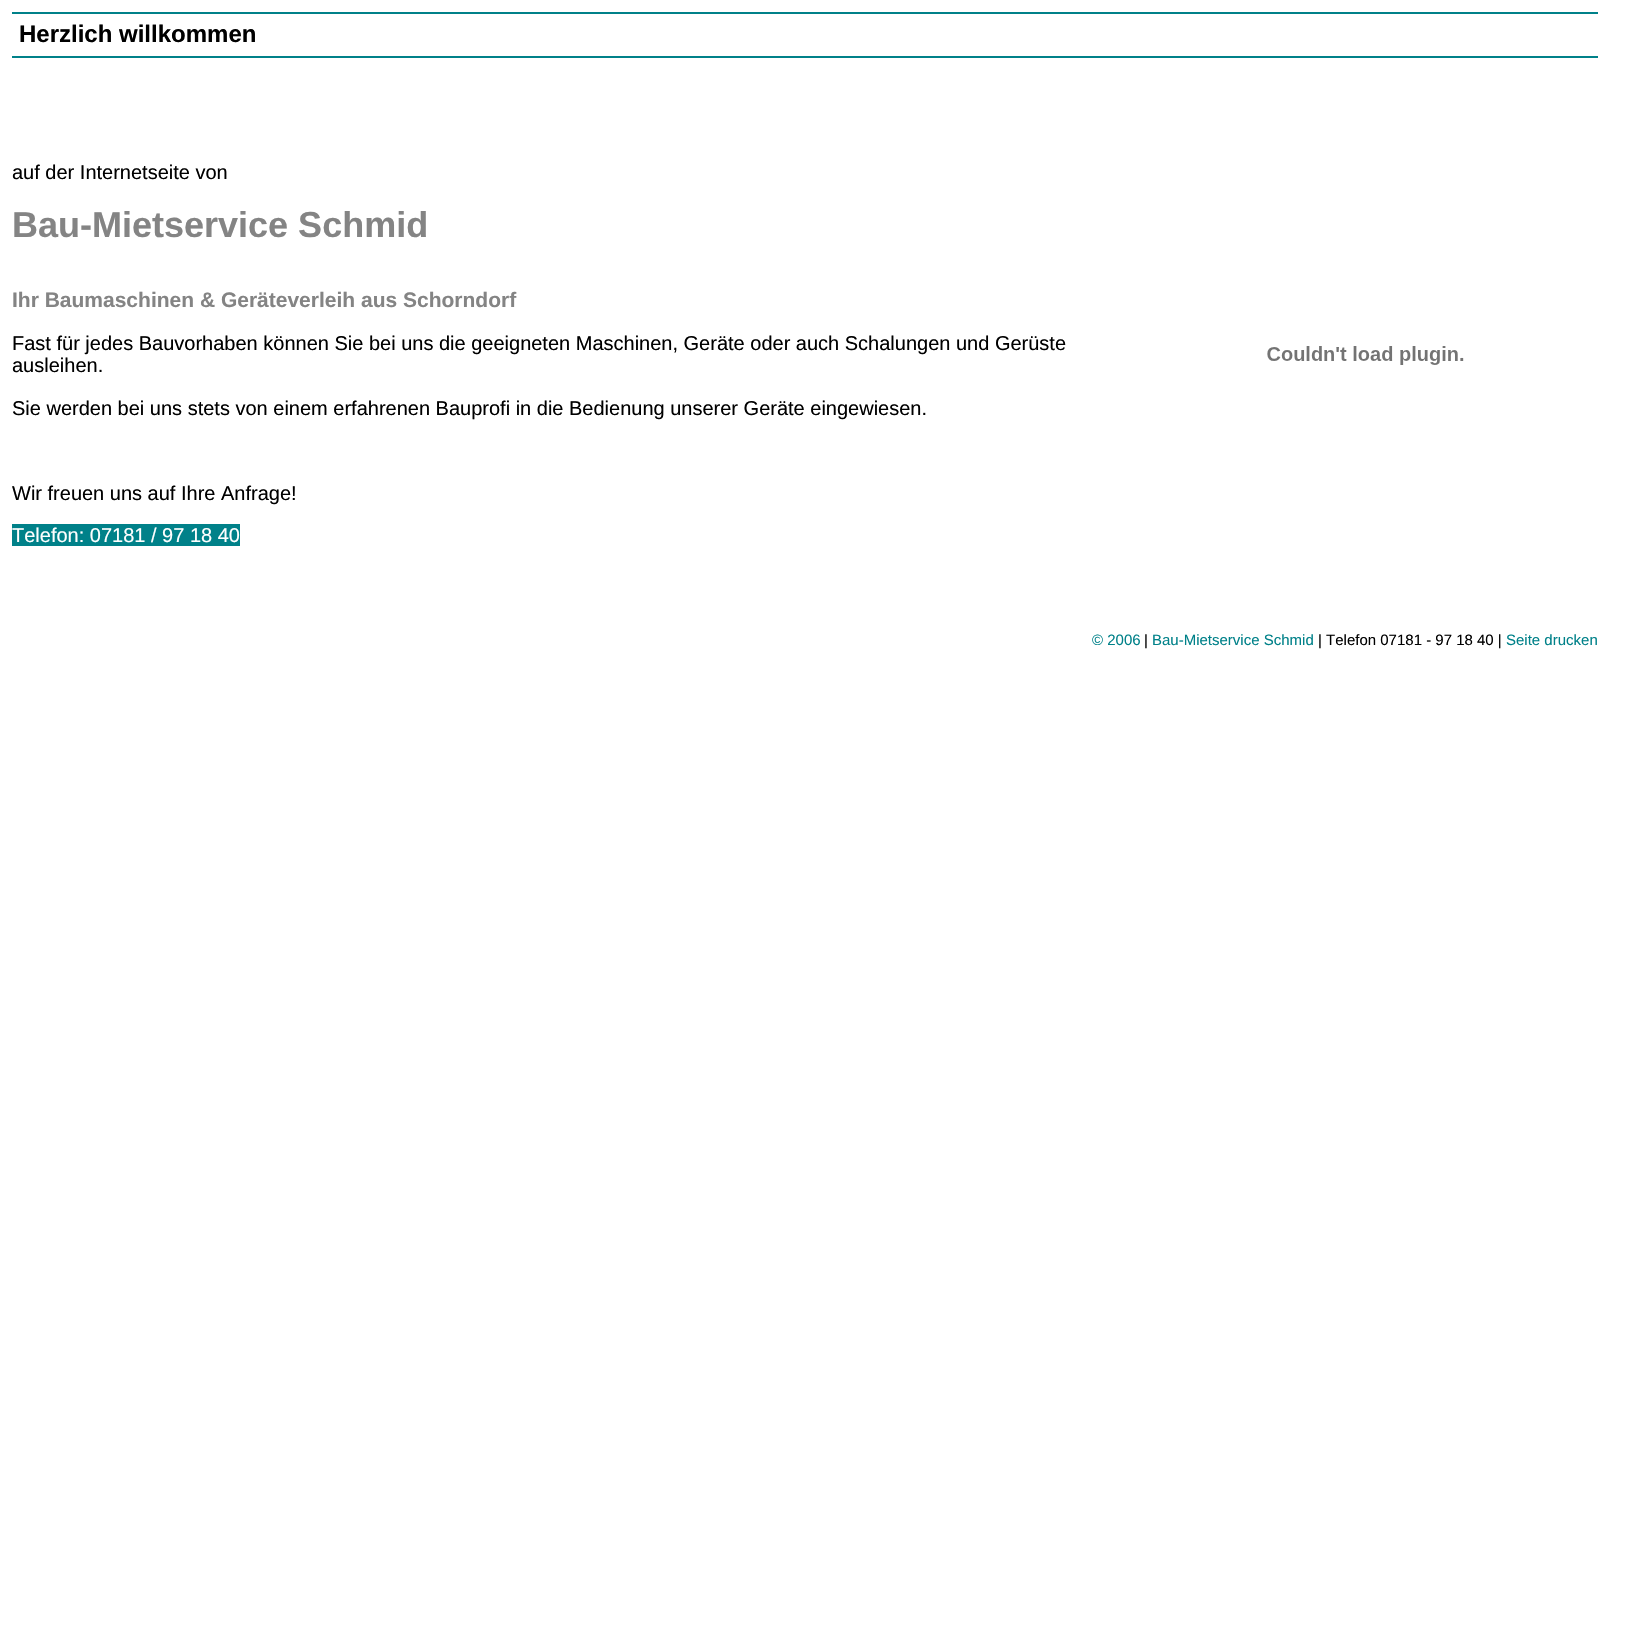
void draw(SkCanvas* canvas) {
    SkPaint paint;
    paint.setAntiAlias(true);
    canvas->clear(0xFFFFFFFF);
    paint.setColor(0xFF008189);
    canvas->drawRect(SkRect::MakeXYWH(12, 12, 1586, 2), paint);
    canvas->drawRect(SkRect::MakeXYWH(12, 56, 1586, 2), paint);
    SkFont font1(fontMgr->matchFamilyStyle("Liberation Sans", SkFontStyle::Bold()), 24);
    font1.setSubpixel(true);
    paint.setColor(0xFF000000);
    canvas->drawString("Herzlich willkommen", 19, 42, font1, paint);
    SkFont font2(fontMgr->matchFamilyStyle("Liberation Sans", SkFontStyle::Normal()), 20);
    font2.setSubpixel(true);
    canvas->drawString("auf der Internetseite von", 12, 179, font2, paint);
    SkFont font3(fontMgr->matchFamilyStyle("Liberation Sans", SkFontStyle::Bold()), 36);
    font3.setSubpixel(true);
    paint.setColor(0xFF848484);
    canvas->drawString("Bau-Mietservice Schmid", 12, 237, font3, paint);
    SkFont font4(fontMgr->matchFamilyStyle("Liberation Sans", SkFontStyle::Bold()), 21);
    font4.setSubpixel(true);
    canvas->drawString("Ihr Baumaschinen & Geräteverleih aus Schorndorf", 12, 307, font4, paint);
    paint.setColor(0xFF000000);
    canvas->drawString("Fast für jedes Bauvorhaben können Sie bei uns die geeigneten Maschinen, Geräte oder auch Schalungen und Gerüste", 12, 350, font2, paint);
    canvas->drawString("ausleihen.", 12, 372, font2, paint);
    canvas->drawString("Sie werden bei uns stets von einem erfahrenen Bauprofi in die Bedienung unserer Geräte eingewiesen.", 12, 415, font2, paint);
    canvas->drawString("Wir freuen uns auf Ihre Anfrage!", 12, 500, font2, paint);
    paint.setColor(0xFF008189);
    canvas->drawRect(SkRect::MakeXYWH(12, 524, 228, 22), paint);
    paint.setColor(0xFFFFFFFF);
    canvas->drawString("Telefon: 07181 / 97 18 40", 12, 542, font2, paint);
    canvas->drawImageRect(SkImages::DeferredFromEncodedData(SkData::MakeFromFileName("img1.png")), SkRect::MakeXYWH(1267, 346, 197, 19), SkSamplingOptions());
    SkFont font5(fontMgr->matchFamilyStyle("Liberation Sans", SkFontStyle::Normal()), 15);
    font5.setSubpixel(true);
    paint.setColor(0xFF008189);
    canvas->drawString("© 2006", 1092, 645, font5, paint);
    paint.setColor(0xFF000000);
    canvas->drawString("|", 1144, 645, font5, paint);
    paint.setColor(0xFF008189);
    canvas->drawString("Bau-Mietservice Schmid", 1152, 645, font5, paint);
    paint.setColor(0xFF000000);
    canvas->drawString("| Telefon 07181 - 97 18 40 |", 1318, 645, font5, paint);
    paint.setColor(0xFF008189);
    canvas->drawString("Seite drucken", 1506, 645, font5, paint);
}
